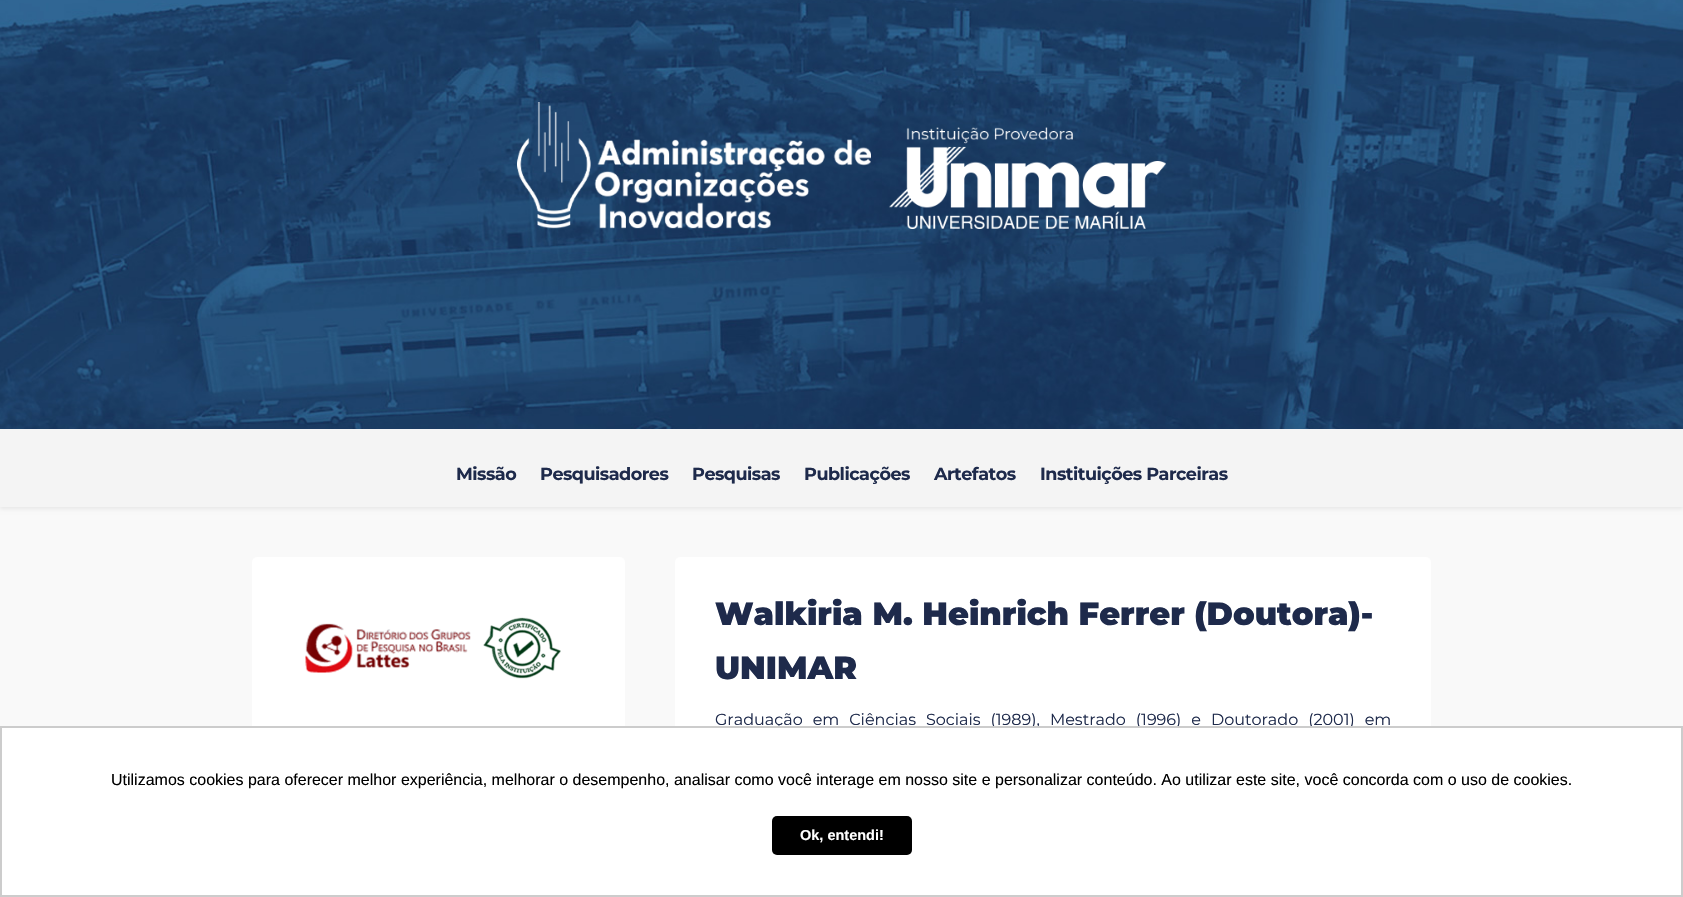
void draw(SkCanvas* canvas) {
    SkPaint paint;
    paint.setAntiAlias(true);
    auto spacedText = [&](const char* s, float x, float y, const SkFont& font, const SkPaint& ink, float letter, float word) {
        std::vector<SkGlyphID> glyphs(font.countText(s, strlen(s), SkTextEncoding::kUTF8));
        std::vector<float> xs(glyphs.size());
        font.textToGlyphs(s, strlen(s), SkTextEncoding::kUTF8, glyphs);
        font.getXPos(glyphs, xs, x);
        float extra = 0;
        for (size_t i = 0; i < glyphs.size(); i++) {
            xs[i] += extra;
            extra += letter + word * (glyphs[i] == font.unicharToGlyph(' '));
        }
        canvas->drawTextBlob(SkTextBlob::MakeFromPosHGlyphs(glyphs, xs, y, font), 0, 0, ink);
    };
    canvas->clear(0xFFF9F9F9);
    canvas->drawImageRect(SkImages::DeferredFromEncodedData(SkData::MakeFromFileName("img1.png")), SkRect::MakeXYWH(0, 0, 1683, 429), SkSamplingOptions());
    canvas->drawImageRect(SkImages::DeferredFromEncodedData(SkData::MakeFromFileName("img2.png")), SkRect::MakeXYWH(517, 102, 649, 127), SkSamplingOptions());
    paint.setColor(0x12000000);
    paint.setMaskFilter(SkMaskFilter::MakeBlur(kNormal_SkBlurStyle, 2));
    canvas->drawRect(SkRect::MakeXYWH(0, 431, 1683, 78), paint);
    paint.setMaskFilter(nullptr);
    paint.setColor(0xFFF4F4F4);
    canvas->drawRect(SkRect::MakeXYWH(0, 429, 1683, 78), paint);
    SkFont font1(fontMgr->matchFamilyStyle("Montserrat", SkFontStyle::Bold()), 17.6f);
    font1.setSubpixel(true);
    paint.setColor(0xFF1E2A4B);
    spacedText("Missão", 456, 480, font1, paint, -0.5f, 0);
    spacedText("Pesquisadores", 540, 480, font1, paint, -0.5f, 0);
    spacedText("Pesquisas", 692, 480, font1, paint, -0.5f, 0);
    spacedText("Publicações", 804, 480, font1, paint, -0.5f, 0);
    spacedText("Artefatos", 934, 480, font1, paint, -0.5f, 0);
    spacedText("Instituições Parceiras", 1040, 480, font1, paint, -0.5f, 0);
    paint.setColor(0xFFFFFFFF);
    canvas->drawRoundRect(SkRect::MakeXYWH(252, 557, 373, 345), 5, 5, paint);
    canvas->drawImageRect(SkImages::DeferredFromEncodedData(SkData::MakeFromFileName("img3.png")), SkRect::MakeXYWH(305, 617, 256, 62), SkSamplingOptions());
    canvas->drawRoundRect(SkRect::MakeXYWH(675, 557, 756, 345), 5, 5, paint);
    SkFont font2(fontMgr->matchFamilyStyle("Montserrat", SkFontStyle(900, SkFontStyle::kNormal_Width, SkFontStyle::kUpright_Slant)), 32);
    font2.setSubpixel(true);
    paint.setColor(0xFF1E2A4B);
    canvas->drawString("Walkiria M. Heinrich Ferrer (Doutora)-", 715, 625, font2, paint);
    canvas->drawString("UNIMAR", 715, 679, font2, paint);
    SkFont font3(fontMgr->matchFamilyStyle("Montserrat", SkFontStyle::Normal()), 16);
    font3.setSubpixel(true);
    spacedText("Graduação em Ciências Sociais (1989), Mestrado (1996) e Doutorado (2001) em", 715, 725, font3, paint, 0, 5.75f);
    paint.setColor(0xFFFFFFFF);
    canvas->drawRect(SkRect::MakeXYWH(1, 727, 1681, 169), paint);
    paint.setStyle(SkPaint::kStroke_Style);
    paint.setStrokeWidth(2);
    paint.setColor(0xFFCCCCCC);
    canvas->drawRect(SkRect::MakeXYWH(1, 727, 1681, 169), paint);
    SkFont font4(fontMgr->matchFamilyStyle("Liberation Sans", SkFontStyle::Normal()), 16);
    font4.setSubpixel(true);
    paint.setStyle(SkPaint::kFill_Style);
    paint.setColor(0xFF000000);
    canvas->drawString("Utilizamos cookies para oferecer melhor experiência, melhorar o desempenho, analisar como você interage em nosso site e personalizar conteúdo. Ao utilizar este site, você concorda com o uso de cookies.", 111, 785, font4, paint);
    canvas->drawRoundRect(SkRect::MakeXYWH(772, 816, 140, 39), 5, 5, paint);
    SkFont font5(fontMgr->matchFamilyStyle("Liberation Sans", SkFontStyle::Bold()), 14.5f);
    font5.setSubpixel(true);
    paint.setColor(0xFFFFFFFF);
    canvas->drawString("Ok, entendi!", 800, 840, font5, paint);
}
